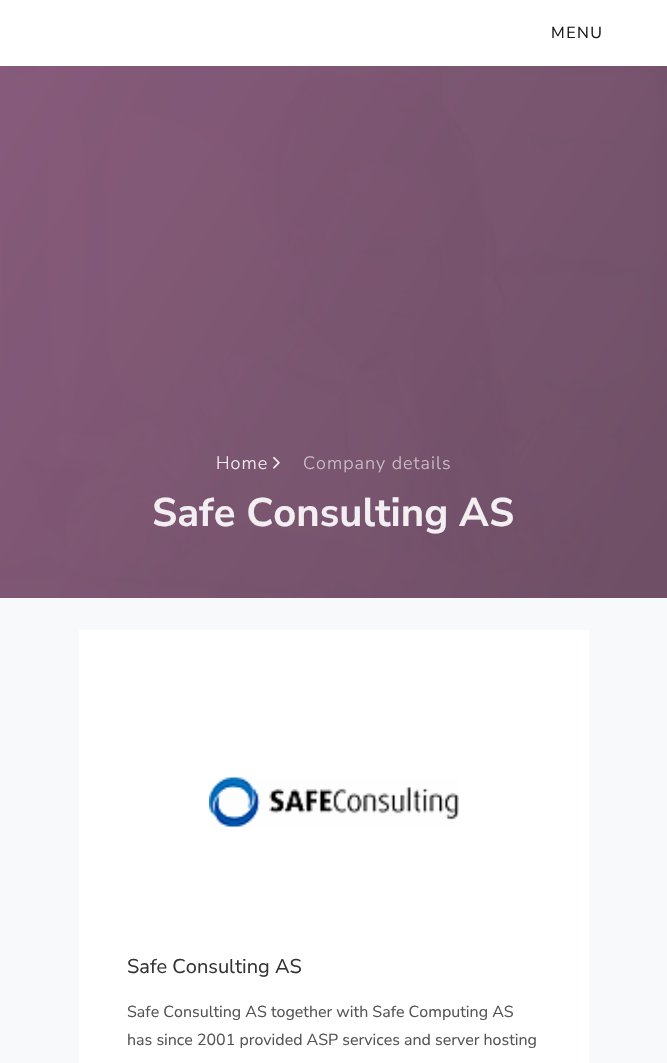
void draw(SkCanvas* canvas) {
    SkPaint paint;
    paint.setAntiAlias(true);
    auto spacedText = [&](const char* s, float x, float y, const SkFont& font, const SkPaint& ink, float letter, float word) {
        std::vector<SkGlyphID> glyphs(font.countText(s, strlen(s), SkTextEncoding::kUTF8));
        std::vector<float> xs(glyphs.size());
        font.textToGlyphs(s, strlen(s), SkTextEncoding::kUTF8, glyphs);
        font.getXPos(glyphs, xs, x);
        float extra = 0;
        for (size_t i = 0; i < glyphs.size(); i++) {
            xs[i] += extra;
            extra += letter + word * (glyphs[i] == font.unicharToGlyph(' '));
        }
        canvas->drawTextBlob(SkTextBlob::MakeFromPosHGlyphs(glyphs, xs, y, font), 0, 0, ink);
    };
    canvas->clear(0xFFFFFFFF);
    SkFont font1(fontMgr->matchFamilyStyle("Nunito Sans", SkFontStyle::Normal()), 16);
    font1.setSubpixel(true);
    paint.setColor(0xFF1A1A1A);
    spacedText("MENU", 551, 38, font1, paint, 1.5f, 0);
    canvas->drawImageRect(SkImages::DeferredFromEncodedData(SkData::MakeFromFileName("img1.png")), SkRect::MakeXYWH(0, 66, 667, 532), SkSamplingOptions());
    {
        const SkColor colors[] = {0xE6875A7B, 0xE662495B};
        const float stops[] = {0, 1};
        const SkPoint ends[] = {{-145, 231}, {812, 832}};
        paint.setShader(SkGradientShader::MakeLinear(ends, colors, stops, 2, SkTileMode::kClamp));
        paint.setAlpha(255);
    }
    canvas->drawRect(SkRect::MakeXYWH(0, 66, 667, 532), paint);
    SkFont font2(fontMgr->matchFamilyStyle("Nunito Sans", SkFontStyle(300, SkFontStyle::kNormal_Width, SkFontStyle::kUpright_Slant)), 18);
    font2.setSubpixel(true);
    paint.setShader(nullptr);
    paint.setColor(0xFFF2EEF1);
    spacedText("Home", 216, 469, font2, paint, 1, 0);
    canvas->drawImageRect(SkImages::DeferredFromEncodedData(SkData::MakeFromFileName("img2.png")), SkRect::MakeXYWH(273, 456, 7, 13), SkSamplingOptions());
    paint.setColor(0xFFCDC0C9);
    spacedText("Company details", 303, 469, font2, paint, 1, 0);
    SkFont font3(fontMgr->matchFamilyStyle("Nunito Sans", SkFontStyle::Bold()), 40);
    font3.setSubpixel(true);
    paint.setColor(0xFFF2EEF1);
    canvas->drawString("Safe Consulting AS", 152, 526, font3, paint);
    paint.setColor(0xFFF8F9FA);
    canvas->drawRect(SkRect::MakeXYWH(0, 598, 667, 465), paint);
    paint.setColor(0xFFFFFFFF);
    canvas->drawRect(SkRect::MakeXYWH(79, 630, 510, 433), paint);
    canvas->drawImageRect(SkImages::DeferredFromEncodedData(SkData::MakeFromFileName("img3.png")), SkRect::MakeXYWH(209, 777, 250, 50), SkSamplingOptions());
    SkFont font4(fontMgr->matchFamilyStyle("Nunito Sans", SkFontStyle::Normal()), 20);
    font4.setSubpixel(true);
    paint.setColor(0xFF333333);
    canvas->drawString("Safe Consulting AS", 127, 973, font4, paint);
    paint.setColor(0xFF545454);
    canvas->drawString("Safe Consulting AS together with Safe Computing AS", 127, 1017, font1, paint);
    canvas->drawString("has since 2001 provided ASP services and server hosting", 127, 1045, font1, paint);
}
